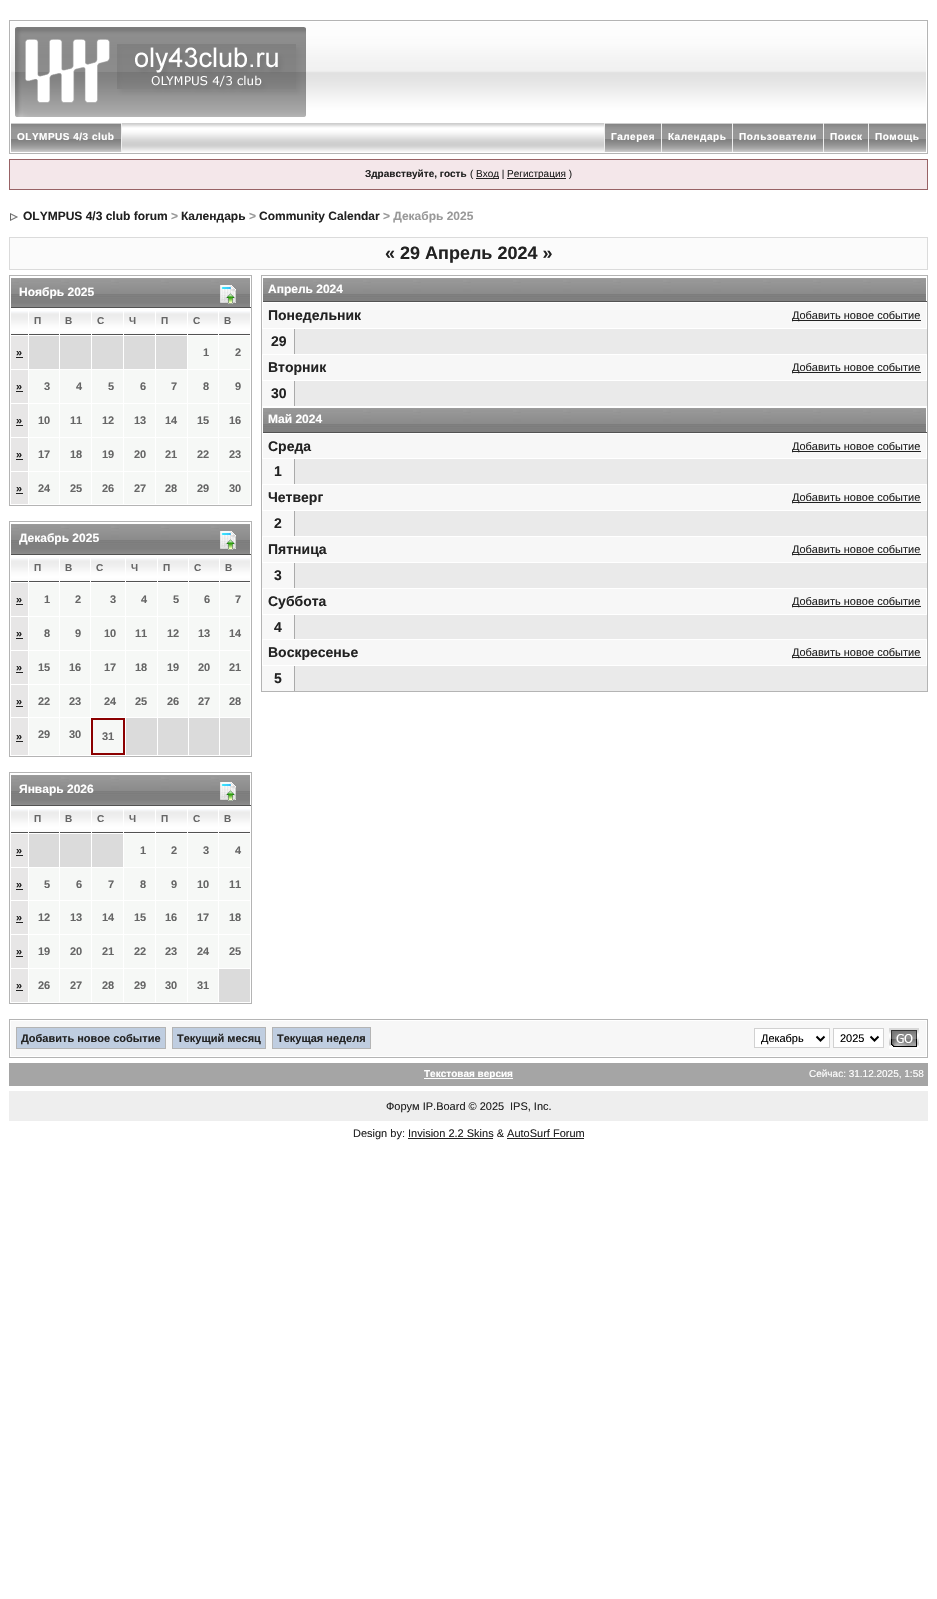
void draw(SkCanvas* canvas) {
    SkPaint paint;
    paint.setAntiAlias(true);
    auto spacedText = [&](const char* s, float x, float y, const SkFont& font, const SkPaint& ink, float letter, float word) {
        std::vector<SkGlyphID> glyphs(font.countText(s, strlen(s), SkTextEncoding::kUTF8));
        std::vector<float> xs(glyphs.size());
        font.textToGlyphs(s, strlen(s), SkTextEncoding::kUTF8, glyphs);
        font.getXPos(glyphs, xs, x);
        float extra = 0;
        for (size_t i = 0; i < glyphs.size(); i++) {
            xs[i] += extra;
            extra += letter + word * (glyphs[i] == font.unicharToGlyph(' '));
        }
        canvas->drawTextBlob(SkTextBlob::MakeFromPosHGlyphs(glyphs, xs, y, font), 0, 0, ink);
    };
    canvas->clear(0xFFFFFFFF);
    paint.setStyle(SkPaint::kStroke_Style);
    paint.setStrokeWidth(1);
    paint.setColor(0xFFB4B4B4);
    canvas->drawRect(SkRect::MakeXYWH(9.5f, 20.5f, 918, 133), paint);
    canvas->drawImageRect(SkImages::DeferredFromEncodedData(SkData::MakeFromFileName("img1.png")), SkRect::MakeXYWH(11, 22, 915, 100), SkSamplingOptions());
    canvas->drawImageRect(SkImages::DeferredFromEncodedData(SkData::MakeFromFileName("img2.png")), SkRect::MakeXYWH(15, 27, 291, 90), SkSamplingOptions());
    canvas->drawImageRect(SkImages::DeferredFromEncodedData(SkData::MakeFromFileName("img3.png")), SkRect::MakeXYWH(11, 123, 915, 29), SkSamplingOptions());
    canvas->drawImageRect(SkImages::DeferredFromEncodedData(SkData::MakeFromFileName("img4.png")), SkRect::MakeXYWH(11, 124, 110, 28), SkSamplingOptions());
    paint.setStyle(SkPaint::kFill_Style);
    paint.setColor(0xFFEFEFEF);
    canvas->drawRect(SkRect::MakeXYWH(121, 123, 1, 29), paint);
    SkFont font1(fontMgr->matchFamilyStyle("Liberation Sans", SkFontStyle::Bold()), 10);
    font1.setSubpixel(true);
    paint.setColor(0xFFFFFFFF);
    spacedText("OLYMPUS 4/3 club", 17, 140, font1, paint, 0.5f, 0);
    canvas->drawImageRect(SkImages::DeferredFromEncodedData(SkData::MakeFromFileName("img5.png")), SkRect::MakeXYWH(605, 124, 56, 28), SkSamplingOptions());
    paint.setColor(0xFFEFEFEF);
    canvas->drawRect(SkRect::MakeXYWH(604, 123, 1, 29), paint);
    paint.setColor(0xFFFFFFFF);
    spacedText("Галерея", 611, 140, font1, paint, 0.5f, 0);
    canvas->drawImageRect(SkImages::DeferredFromEncodedData(SkData::MakeFromFileName("img6.png")), SkRect::MakeXYWH(662, 124, 70, 28), SkSamplingOptions());
    paint.setColor(0xFFEFEFEF);
    canvas->drawRect(SkRect::MakeXYWH(661, 123, 1, 29), paint);
    paint.setColor(0xFFFFFFFF);
    spacedText("Календарь", 668, 140, font1, paint, 0.5f, 0);
    canvas->drawImageRect(SkImages::DeferredFromEncodedData(SkData::MakeFromFileName("img7.png")), SkRect::MakeXYWH(733, 124, 90, 28), SkSamplingOptions());
    paint.setColor(0xFFEFEFEF);
    canvas->drawRect(SkRect::MakeXYWH(732, 123, 1, 29), paint);
    paint.setColor(0xFFFFFFFF);
    spacedText("Пользователи", 739, 140, font1, paint, 0.5f, 0);
    canvas->drawImageRect(SkImages::DeferredFromEncodedData(SkData::MakeFromFileName("img8.png")), SkRect::MakeXYWH(824, 124, 44, 28), SkSamplingOptions());
    paint.setColor(0xFFEFEFEF);
    canvas->drawRect(SkRect::MakeXYWH(823, 123, 1, 29), paint);
    paint.setColor(0xFFFFFFFF);
    spacedText("Поиск", 830, 140, font1, paint, 0.5f, 0);
    canvas->drawImageRect(SkImages::DeferredFromEncodedData(SkData::MakeFromFileName("img9.png")), SkRect::MakeXYWH(869, 124, 57, 28), SkSamplingOptions());
    paint.setColor(0xFFEFEFEF);
    canvas->drawRect(SkRect::MakeXYWH(868, 123, 1, 29), paint);
    paint.setColor(0xFFFFFFFF);
    spacedText("Помощь", 875, 140, font1, paint, 0.5f, 0);
    paint.setColor(0xFFF4E7EA);
    canvas->drawRect(SkRect::MakeXYWH(9.5f, 159.5f, 918, 30), paint);
    paint.setStyle(SkPaint::kStroke_Style);
    paint.setColor(0xFF986265);
    canvas->drawRect(SkRect::MakeXYWH(9.5f, 159.5f, 918, 30), paint);
    paint.setStyle(SkPaint::kFill_Style);
    paint.setColor(0xFF222222);
    canvas->drawString("Здравствуйте, гость", 365, 177, font1, paint);
    SkFont font2(fontMgr->matchFamilyStyle("Liberation Sans", SkFontStyle::Normal()), 10);
    font2.setSubpixel(true);
    canvas->drawString("(", 470, 177, font2, paint);
    canvas->drawRect(SkRect::MakeXYWH(476, 178, 23, 1), paint);
    canvas->drawString("Вход |", 476, 177, font2, paint);
    canvas->drawRect(SkRect::MakeXYWH(507, 178, 59, 1), paint);
    canvas->drawString("Регистрация )", 507, 177, font2, paint);
    canvas->drawImageRect(SkImages::DeferredFromEncodedData(SkData::MakeFromFileName("img10.png")), SkRect::MakeXYWH(10, 213, 8, 8), SkSamplingOptions());
    SkFont font3(fontMgr->matchFamilyStyle("Liberation Sans", SkFontStyle::Bold()), 12);
    font3.setSubpixel(true);
    canvas->drawString("OLYMPUS 4/3 club forum", 23, 220, font3, paint);
    paint.setColor(0xFF999999);
    canvas->drawString(">", 171, 220, font3, paint);
    paint.setColor(0xFF222222);
    canvas->drawString("Календарь", 181, 220, font3, paint);
    paint.setColor(0xFF999999);
    canvas->drawString(">", 249, 220, font3, paint);
    paint.setColor(0xFF222222);
    canvas->drawString("Community Calendar", 259, 220, font3, paint);
    paint.setColor(0xFF999999);
    canvas->drawString("> Декабрь 2025", 383, 220, font3, paint);
    paint.setColor(0xFFFBFBFB);
    canvas->drawRect(SkRect::MakeXYWH(9.5f, 237.5f, 918, 32), paint);
    paint.setStyle(SkPaint::kStroke_Style);
    paint.setColor(0xFFDBDBDB);
    canvas->drawRect(SkRect::MakeXYWH(9.5f, 237.5f, 918, 32), paint);
    SkFont font4(fontMgr->matchFamilyStyle("Liberation Sans", SkFontStyle::Bold()), 18);
    font4.setSubpixel(true);
    paint.setStyle(SkPaint::kFill_Style);
    paint.setColor(0xFF222222);
    canvas->drawString("« 29 Апрель 2024 »", 385, 259, font4, paint);
    paint.setStyle(SkPaint::kStroke_Style);
    paint.setColor(0xFFB4B4B4);
    canvas->drawRect(SkRect::MakeXYWH(9.5f, 275.5f, 242, 230), paint);
    canvas->drawImageRect(SkImages::DeferredFromEncodedData(SkData::MakeFromFileName("img11.png")), SkRect::MakeXYWH(11, 277, 239, 30), SkSamplingOptions());
    paint.setStyle(SkPaint::kFill_Style);
    paint.setColor(0xFF525252);
    canvas->drawRect(SkRect::MakeXYWH(10, 307, 241, 1), paint);
    paint.setColor(0xFFFFFFFF);
    canvas->drawRect(SkRect::MakeXYWH(10, 307, 1, 1), paint);
    canvas->drawString("Ноябрь 2025", 19, 296, font3, paint);
    canvas->drawImageRect(SkImages::DeferredFromEncodedData(SkData::MakeFromFileName("img12.png")), SkRect::MakeXYWH(220, 285, 16, 19), SkSamplingOptions());
    canvas->drawImageRect(SkImages::DeferredFromEncodedData(SkData::MakeFromFileName("img13.png")), SkRect::MakeXYWH(11, 311, 17, 23), SkSamplingOptions());
    paint.setColor(0xFF525252);
    canvas->drawRect(SkRect::MakeXYWH(11, 334, 17, 1), paint);
    canvas->drawImageRect(SkImages::DeferredFromEncodedData(SkData::MakeFromFileName("img14.png")), SkRect::MakeXYWH(29, 311, 30, 23), SkSamplingOptions());
    canvas->drawRect(SkRect::MakeXYWH(29, 334, 30, 1), paint);
    paint.setColor(0xFF666666);
    spacedText("П", 34, 324, font1, paint, 1, 0);
    canvas->drawImageRect(SkImages::DeferredFromEncodedData(SkData::MakeFromFileName("img15.png")), SkRect::MakeXYWH(60, 311, 31, 23), SkSamplingOptions());
    paint.setColor(0xFF525252);
    canvas->drawRect(SkRect::MakeXYWH(60, 334, 31, 1), paint);
    paint.setColor(0xFF666666);
    spacedText("В", 65, 324, font1, paint, 1, 0);
    canvas->drawImageRect(SkImages::DeferredFromEncodedData(SkData::MakeFromFileName("img15.png")), SkRect::MakeXYWH(92, 311, 31, 23), SkSamplingOptions());
    paint.setColor(0xFF525252);
    canvas->drawRect(SkRect::MakeXYWH(92, 334, 31, 1), paint);
    paint.setColor(0xFF666666);
    spacedText("С", 97, 324, font1, paint, 1, 0);
    canvas->drawImageRect(SkImages::DeferredFromEncodedData(SkData::MakeFromFileName("img15.png")), SkRect::MakeXYWH(124, 311, 31, 23), SkSamplingOptions());
    paint.setColor(0xFF525252);
    canvas->drawRect(SkRect::MakeXYWH(124, 334, 31, 1), paint);
    paint.setColor(0xFF666666);
    spacedText("Ч", 129, 324, font1, paint, 1, 0);
    canvas->drawImageRect(SkImages::DeferredFromEncodedData(SkData::MakeFromFileName("img15.png")), SkRect::MakeXYWH(156, 311, 31, 23), SkSamplingOptions());
    paint.setColor(0xFF525252);
    canvas->drawRect(SkRect::MakeXYWH(156, 334, 31, 1), paint);
    paint.setColor(0xFF666666);
    spacedText("П", 161, 324, font1, paint, 1, 0);
    canvas->drawImageRect(SkImages::DeferredFromEncodedData(SkData::MakeFromFileName("img14.png")), SkRect::MakeXYWH(188, 311, 30, 23), SkSamplingOptions());
    paint.setColor(0xFF525252);
    canvas->drawRect(SkRect::MakeXYWH(188, 334, 30, 1), paint);
    paint.setColor(0xFF666666);
    spacedText("С", 193, 324, font1, paint, 1, 0);
    canvas->drawImageRect(SkImages::DeferredFromEncodedData(SkData::MakeFromFileName("img15.png")), SkRect::MakeXYWH(219, 311, 31, 23), SkSamplingOptions());
    paint.setColor(0xFF525252);
    canvas->drawRect(SkRect::MakeXYWH(219, 334, 31, 1), paint);
    paint.setColor(0xFF666666);
    spacedText("В", 224, 324, font1, paint, 1, 0);
    paint.setColor(0xFFE7E6E6);
    canvas->drawRect(SkRect::MakeXYWH(11, 336, 17, 33), paint);
    SkFont font5(fontMgr->matchFamilyStyle("Liberation Sans", SkFontStyle::Bold()), 11);
    font5.setSubpixel(true);
    paint.setColor(0xFF222222);
    canvas->drawString("»", 16, 356, font5, paint);
    canvas->drawRect(SkRect::MakeXYWH(16, 357, 7, 1), paint);
    paint.setColor(0xFFDBDBDB);
    canvas->drawRect(SkRect::MakeXYWH(29, 336, 30, 33), paint);
    canvas->drawRect(SkRect::MakeXYWH(60, 336, 31, 33), paint);
    canvas->drawRect(SkRect::MakeXYWH(92, 336, 31, 33), paint);
    canvas->drawRect(SkRect::MakeXYWH(124, 336, 31, 33), paint);
    canvas->drawRect(SkRect::MakeXYWH(156, 336, 31, 33), paint);
    paint.setColor(0xFFF6F8F6);
    canvas->drawRect(SkRect::MakeXYWH(188, 336, 30, 33), paint);
    paint.setColor(0xFF666666);
    canvas->drawString("1", 203, 356, font5, paint);
    paint.setColor(0xFFF6F8F6);
    canvas->drawRect(SkRect::MakeXYWH(219, 336, 31, 33), paint);
    paint.setColor(0xFF666666);
    canvas->drawString("2", 235, 356, font5, paint);
    paint.setColor(0xFFE7E6E6);
    canvas->drawRect(SkRect::MakeXYWH(11, 370, 17, 33), paint);
    paint.setColor(0xFF222222);
    canvas->drawString("»", 16, 390, font5, paint);
    canvas->drawRect(SkRect::MakeXYWH(16, 391, 7, 1), paint);
    paint.setColor(0xFFF6F8F6);
    canvas->drawRect(SkRect::MakeXYWH(29, 370, 30, 33), paint);
    paint.setColor(0xFF666666);
    canvas->drawString("3", 44, 390, font5, paint);
    paint.setColor(0xFFF6F8F6);
    canvas->drawRect(SkRect::MakeXYWH(60, 370, 31, 33), paint);
    paint.setColor(0xFF666666);
    canvas->drawString("4", 76, 390, font5, paint);
    paint.setColor(0xFFF6F8F6);
    canvas->drawRect(SkRect::MakeXYWH(92, 370, 31, 33), paint);
    paint.setColor(0xFF666666);
    canvas->drawString("5", 108, 390, font5, paint);
    paint.setColor(0xFFF6F8F6);
    canvas->drawRect(SkRect::MakeXYWH(124, 370, 31, 33), paint);
    paint.setColor(0xFF666666);
    canvas->drawString("6", 140, 390, font5, paint);
    paint.setColor(0xFFF6F8F6);
    canvas->drawRect(SkRect::MakeXYWH(156, 370, 31, 33), paint);
    paint.setColor(0xFF666666);
    canvas->drawString("7", 171, 390, font5, paint);
    paint.setColor(0xFFF6F8F6);
    canvas->drawRect(SkRect::MakeXYWH(188, 370, 30, 33), paint);
    paint.setColor(0xFF666666);
    canvas->drawString("8", 203, 390, font5, paint);
    paint.setColor(0xFFF6F8F6);
    canvas->drawRect(SkRect::MakeXYWH(219, 370, 31, 33), paint);
    paint.setColor(0xFF666666);
    canvas->drawString("9", 235, 390, font5, paint);
    paint.setColor(0xFFE7E6E6);
    canvas->drawRect(SkRect::MakeXYWH(11, 404, 17, 33), paint);
    paint.setColor(0xFF222222);
    canvas->drawString("»", 16, 424, font5, paint);
    canvas->drawRect(SkRect::MakeXYWH(16, 425, 7, 1), paint);
    paint.setColor(0xFFF6F8F6);
    canvas->drawRect(SkRect::MakeXYWH(29, 404, 30, 33), paint);
    paint.setColor(0xFF666666);
    canvas->drawString("10", 38, 424, font5, paint);
    paint.setColor(0xFFF6F8F6);
    canvas->drawRect(SkRect::MakeXYWH(60, 404, 31, 33), paint);
    paint.setColor(0xFF666666);
    canvas->drawString("11", 70, 424, font5, paint);
    paint.setColor(0xFFF6F8F6);
    canvas->drawRect(SkRect::MakeXYWH(92, 404, 31, 33), paint);
    paint.setColor(0xFF666666);
    canvas->drawString("12", 102, 424, font5, paint);
    paint.setColor(0xFFF6F8F6);
    canvas->drawRect(SkRect::MakeXYWH(124, 404, 31, 33), paint);
    paint.setColor(0xFF666666);
    canvas->drawString("13", 134, 424, font5, paint);
    paint.setColor(0xFFF6F8F6);
    canvas->drawRect(SkRect::MakeXYWH(156, 404, 31, 33), paint);
    paint.setColor(0xFF666666);
    canvas->drawString("14", 165, 424, font5, paint);
    paint.setColor(0xFFF6F8F6);
    canvas->drawRect(SkRect::MakeXYWH(188, 404, 30, 33), paint);
    paint.setColor(0xFF666666);
    canvas->drawString("15", 197, 424, font5, paint);
    paint.setColor(0xFFF6F8F6);
    canvas->drawRect(SkRect::MakeXYWH(219, 404, 31, 33), paint);
    paint.setColor(0xFF666666);
    canvas->drawString("16", 229, 424, font5, paint);
    paint.setColor(0xFFE7E6E6);
    canvas->drawRect(SkRect::MakeXYWH(11, 438, 17, 33), paint);
    paint.setColor(0xFF222222);
    canvas->drawString("»", 16, 458, font5, paint);
    canvas->drawRect(SkRect::MakeXYWH(16, 459, 7, 1), paint);
    paint.setColor(0xFFF6F8F6);
    canvas->drawRect(SkRect::MakeXYWH(29, 438, 30, 33), paint);
    paint.setColor(0xFF666666);
    canvas->drawString("17", 38, 458, font5, paint);
    paint.setColor(0xFFF6F8F6);
    canvas->drawRect(SkRect::MakeXYWH(60, 438, 31, 33), paint);
    paint.setColor(0xFF666666);
    canvas->drawString("18", 70, 458, font5, paint);
    paint.setColor(0xFFF6F8F6);
    canvas->drawRect(SkRect::MakeXYWH(92, 438, 31, 33), paint);
    paint.setColor(0xFF666666);
    canvas->drawString("19", 102, 458, font5, paint);
    paint.setColor(0xFFF6F8F6);
    canvas->drawRect(SkRect::MakeXYWH(124, 438, 31, 33), paint);
    paint.setColor(0xFF666666);
    canvas->drawString("20", 134, 458, font5, paint);
    paint.setColor(0xFFF6F8F6);
    canvas->drawRect(SkRect::MakeXYWH(156, 438, 31, 33), paint);
    paint.setColor(0xFF666666);
    canvas->drawString("21", 165, 458, font5, paint);
    paint.setColor(0xFFF6F8F6);
    canvas->drawRect(SkRect::MakeXYWH(188, 438, 30, 33), paint);
    paint.setColor(0xFF666666);
    canvas->drawString("22", 197, 458, font5, paint);
    paint.setColor(0xFFF6F8F6);
    canvas->drawRect(SkRect::MakeXYWH(219, 438, 31, 33), paint);
    paint.setColor(0xFF666666);
    canvas->drawString("23", 229, 458, font5, paint);
    paint.setColor(0xFFE7E6E6);
    canvas->drawRect(SkRect::MakeXYWH(11, 472, 17, 32), paint);
    paint.setColor(0xFF222222);
    canvas->drawString("»", 16, 492, font5, paint);
    canvas->drawRect(SkRect::MakeXYWH(16, 493, 7, 1), paint);
    paint.setColor(0xFFF6F8F6);
    canvas->drawRect(SkRect::MakeXYWH(29, 472, 30, 32), paint);
    paint.setColor(0xFF666666);
    canvas->drawString("24", 38, 492, font5, paint);
    paint.setColor(0xFFF6F8F6);
    canvas->drawRect(SkRect::MakeXYWH(60, 472, 31, 32), paint);
    paint.setColor(0xFF666666);
    canvas->drawString("25", 70, 492, font5, paint);
    paint.setColor(0xFFF6F8F6);
    canvas->drawRect(SkRect::MakeXYWH(92, 472, 31, 32), paint);
    paint.setColor(0xFF666666);
    canvas->drawString("26", 102, 492, font5, paint);
    paint.setColor(0xFFF6F8F6);
    canvas->drawRect(SkRect::MakeXYWH(124, 472, 31, 32), paint);
    paint.setColor(0xFF666666);
    canvas->drawString("27", 134, 492, font5, paint);
    paint.setColor(0xFFF6F8F6);
    canvas->drawRect(SkRect::MakeXYWH(156, 472, 31, 32), paint);
    paint.setColor(0xFF666666);
    canvas->drawString("28", 165, 492, font5, paint);
    paint.setColor(0xFFF6F8F6);
    canvas->drawRect(SkRect::MakeXYWH(188, 472, 30, 32), paint);
    paint.setColor(0xFF666666);
    canvas->drawString("29", 197, 492, font5, paint);
    paint.setColor(0xFFF6F8F6);
    canvas->drawRect(SkRect::MakeXYWH(219, 472, 31, 32), paint);
    paint.setColor(0xFF666666);
    canvas->drawString("30", 229, 492, font5, paint);
    paint.setStyle(SkPaint::kStroke_Style);
    paint.setColor(0xFFB4B4B4);
    canvas->drawRect(SkRect::MakeXYWH(9.5f, 521.5f, 242, 235), paint);
    canvas->drawImageRect(SkImages::DeferredFromEncodedData(SkData::MakeFromFileName("img16.png")), SkRect::MakeXYWH(11, 523, 239, 31), SkSamplingOptions());
    paint.setStyle(SkPaint::kFill_Style);
    paint.setColor(0xFF525252);
    canvas->drawRect(SkRect::MakeXYWH(10, 554, 241, 1), paint);
    paint.setColor(0xFFFFFFFF);
    canvas->drawRect(SkRect::MakeXYWH(10, 554, 1, 1), paint);
    canvas->drawString("Декабрь 2025", 19, 542, font3, paint);
    canvas->drawImageRect(SkImages::DeferredFromEncodedData(SkData::MakeFromFileName("img12.png")), SkRect::MakeXYWH(220, 531, 16, 19), SkSamplingOptions());
    canvas->drawImageRect(SkImages::DeferredFromEncodedData(SkData::MakeFromFileName("img13.png")), SkRect::MakeXYWH(11, 558, 17, 23), SkSamplingOptions());
    paint.setColor(0xFF525252);
    canvas->drawRect(SkRect::MakeXYWH(11, 581, 17, 1), paint);
    canvas->drawImageRect(SkImages::DeferredFromEncodedData(SkData::MakeFromFileName("img14.png")), SkRect::MakeXYWH(29, 558, 30, 23), SkSamplingOptions());
    canvas->drawRect(SkRect::MakeXYWH(29, 581, 30, 1), paint);
    paint.setColor(0xFF666666);
    spacedText("П", 34, 571, font1, paint, 1, 0);
    canvas->drawImageRect(SkImages::DeferredFromEncodedData(SkData::MakeFromFileName("img14.png")), SkRect::MakeXYWH(60, 558, 30, 23), SkSamplingOptions());
    paint.setColor(0xFF525252);
    canvas->drawRect(SkRect::MakeXYWH(60, 581, 30, 1), paint);
    paint.setColor(0xFF666666);
    spacedText("В", 65, 571, font1, paint, 1, 0);
    canvas->drawImageRect(SkImages::DeferredFromEncodedData(SkData::MakeFromFileName("img17.png")), SkRect::MakeXYWH(91, 558, 34, 23), SkSamplingOptions());
    paint.setColor(0xFF525252);
    canvas->drawRect(SkRect::MakeXYWH(91, 581, 34, 1), paint);
    paint.setColor(0xFF666666);
    spacedText("С", 96, 571, font1, paint, 1, 0);
    canvas->drawImageRect(SkImages::DeferredFromEncodedData(SkData::MakeFromFileName("img15.png")), SkRect::MakeXYWH(126, 558, 31, 23), SkSamplingOptions());
    paint.setColor(0xFF525252);
    canvas->drawRect(SkRect::MakeXYWH(126, 581, 31, 1), paint);
    paint.setColor(0xFF666666);
    spacedText("Ч", 131, 571, font1, paint, 1, 0);
    canvas->drawImageRect(SkImages::DeferredFromEncodedData(SkData::MakeFromFileName("img14.png")), SkRect::MakeXYWH(158, 558, 30, 23), SkSamplingOptions());
    paint.setColor(0xFF525252);
    canvas->drawRect(SkRect::MakeXYWH(158, 581, 30, 1), paint);
    paint.setColor(0xFF666666);
    spacedText("П", 163, 571, font1, paint, 1, 0);
    canvas->drawImageRect(SkImages::DeferredFromEncodedData(SkData::MakeFromFileName("img14.png")), SkRect::MakeXYWH(189, 558, 30, 23), SkSamplingOptions());
    paint.setColor(0xFF525252);
    canvas->drawRect(SkRect::MakeXYWH(189, 581, 30, 1), paint);
    paint.setColor(0xFF666666);
    spacedText("С", 194, 571, font1, paint, 1, 0);
    canvas->drawImageRect(SkImages::DeferredFromEncodedData(SkData::MakeFromFileName("img14.png")), SkRect::MakeXYWH(220, 558, 30, 23), SkSamplingOptions());
    paint.setColor(0xFF525252);
    canvas->drawRect(SkRect::MakeXYWH(220, 581, 30, 1), paint);
    paint.setColor(0xFF666666);
    spacedText("В", 225, 571, font1, paint, 1, 0);
    paint.setColor(0xFFE7E6E6);
    canvas->drawRect(SkRect::MakeXYWH(11, 583, 17, 33), paint);
    paint.setColor(0xFF222222);
    canvas->drawString("»", 16, 603, font5, paint);
    canvas->drawRect(SkRect::MakeXYWH(16, 604, 7, 1), paint);
    paint.setColor(0xFFF6F8F6);
    canvas->drawRect(SkRect::MakeXYWH(29, 583, 30, 33), paint);
    paint.setColor(0xFF666666);
    canvas->drawString("1", 44, 603, font5, paint);
    paint.setColor(0xFFF6F8F6);
    canvas->drawRect(SkRect::MakeXYWH(60, 583, 30, 33), paint);
    paint.setColor(0xFF666666);
    canvas->drawString("2", 75, 603, font5, paint);
    paint.setColor(0xFFF6F8F6);
    canvas->drawRect(SkRect::MakeXYWH(91, 583, 34, 33), paint);
    paint.setColor(0xFF666666);
    canvas->drawString("3", 110, 603, font5, paint);
    paint.setColor(0xFFF6F8F6);
    canvas->drawRect(SkRect::MakeXYWH(126, 583, 31, 33), paint);
    paint.setColor(0xFF666666);
    canvas->drawString("4", 141, 603, font5, paint);
    paint.setColor(0xFFF6F8F6);
    canvas->drawRect(SkRect::MakeXYWH(158, 583, 30, 33), paint);
    paint.setColor(0xFF666666);
    canvas->drawString("5", 173, 603, font5, paint);
    paint.setColor(0xFFF6F8F6);
    canvas->drawRect(SkRect::MakeXYWH(189, 583, 30, 33), paint);
    paint.setColor(0xFF666666);
    canvas->drawString("6", 204, 603, font5, paint);
    paint.setColor(0xFFF6F8F6);
    canvas->drawRect(SkRect::MakeXYWH(220, 583, 30, 33), paint);
    paint.setColor(0xFF666666);
    canvas->drawString("7", 235, 603, font5, paint);
    paint.setColor(0xFFE7E6E6);
    canvas->drawRect(SkRect::MakeXYWH(11, 617, 17, 33), paint);
    paint.setColor(0xFF222222);
    canvas->drawString("»", 16, 637, font5, paint);
    canvas->drawRect(SkRect::MakeXYWH(16, 638, 7, 1), paint);
    paint.setColor(0xFFF6F8F6);
    canvas->drawRect(SkRect::MakeXYWH(29, 617, 30, 33), paint);
    paint.setColor(0xFF666666);
    canvas->drawString("8", 44, 637, font5, paint);
    paint.setColor(0xFFF6F8F6);
    canvas->drawRect(SkRect::MakeXYWH(60, 617, 30, 33), paint);
    paint.setColor(0xFF666666);
    canvas->drawString("9", 75, 637, font5, paint);
    paint.setColor(0xFFF6F8F6);
    canvas->drawRect(SkRect::MakeXYWH(91, 617, 34, 33), paint);
    paint.setColor(0xFF666666);
    canvas->drawString("10", 104, 637, font5, paint);
    paint.setColor(0xFFF6F8F6);
    canvas->drawRect(SkRect::MakeXYWH(126, 617, 31, 33), paint);
    paint.setColor(0xFF666666);
    canvas->drawString("11", 135, 637, font5, paint);
    paint.setColor(0xFFF6F8F6);
    canvas->drawRect(SkRect::MakeXYWH(158, 617, 30, 33), paint);
    paint.setColor(0xFF666666);
    canvas->drawString("12", 167, 637, font5, paint);
    paint.setColor(0xFFF6F8F6);
    canvas->drawRect(SkRect::MakeXYWH(189, 617, 30, 33), paint);
    paint.setColor(0xFF666666);
    canvas->drawString("13", 198, 637, font5, paint);
    paint.setColor(0xFFF6F8F6);
    canvas->drawRect(SkRect::MakeXYWH(220, 617, 30, 33), paint);
    paint.setColor(0xFF666666);
    canvas->drawString("14", 229, 637, font5, paint);
    paint.setColor(0xFFE7E6E6);
    canvas->drawRect(SkRect::MakeXYWH(11, 651, 17, 33), paint);
    paint.setColor(0xFF222222);
    canvas->drawString("»", 16, 671, font5, paint);
    canvas->drawRect(SkRect::MakeXYWH(16, 672, 7, 1), paint);
    paint.setColor(0xFFF6F8F6);
    canvas->drawRect(SkRect::MakeXYWH(29, 651, 30, 33), paint);
    paint.setColor(0xFF666666);
    canvas->drawString("15", 38, 671, font5, paint);
    paint.setColor(0xFFF6F8F6);
    canvas->drawRect(SkRect::MakeXYWH(60, 651, 30, 33), paint);
    paint.setColor(0xFF666666);
    canvas->drawString("16", 69, 671, font5, paint);
    paint.setColor(0xFFF6F8F6);
    canvas->drawRect(SkRect::MakeXYWH(91, 651, 34, 33), paint);
    paint.setColor(0xFF666666);
    canvas->drawString("17", 104, 671, font5, paint);
    paint.setColor(0xFFF6F8F6);
    canvas->drawRect(SkRect::MakeXYWH(126, 651, 31, 33), paint);
    paint.setColor(0xFF666666);
    canvas->drawString("18", 135, 671, font5, paint);
    paint.setColor(0xFFF6F8F6);
    canvas->drawRect(SkRect::MakeXYWH(158, 651, 30, 33), paint);
    paint.setColor(0xFF666666);
    canvas->drawString("19", 167, 671, font5, paint);
    paint.setColor(0xFFF6F8F6);
    canvas->drawRect(SkRect::MakeXYWH(189, 651, 30, 33), paint);
    paint.setColor(0xFF666666);
    canvas->drawString("20", 198, 671, font5, paint);
    paint.setColor(0xFFF6F8F6);
    canvas->drawRect(SkRect::MakeXYWH(220, 651, 30, 33), paint);
    paint.setColor(0xFF666666);
    canvas->drawString("21", 229, 671, font5, paint);
    paint.setColor(0xFFE7E6E6);
    canvas->drawRect(SkRect::MakeXYWH(11, 685, 17, 32), paint);
    paint.setColor(0xFF222222);
    canvas->drawString("»", 16, 705, font5, paint);
    canvas->drawRect(SkRect::MakeXYWH(16, 706, 7, 1), paint);
    paint.setColor(0xFFF6F8F6);
    canvas->drawRect(SkRect::MakeXYWH(29, 685, 30, 32), paint);
    paint.setColor(0xFF666666);
    canvas->drawString("22", 38, 705, font5, paint);
    paint.setColor(0xFFF6F8F6);
    canvas->drawRect(SkRect::MakeXYWH(60, 685, 30, 32), paint);
    paint.setColor(0xFF666666);
    canvas->drawString("23", 69, 705, font5, paint);
    paint.setColor(0xFFF6F8F6);
    canvas->drawRect(SkRect::MakeXYWH(91, 685, 34, 32), paint);
    paint.setColor(0xFF666666);
    canvas->drawString("24", 104, 705, font5, paint);
    paint.setColor(0xFFF6F8F6);
    canvas->drawRect(SkRect::MakeXYWH(126, 685, 31, 32), paint);
    paint.setColor(0xFF666666);
    canvas->drawString("25", 135, 705, font5, paint);
    paint.setColor(0xFFF6F8F6);
    canvas->drawRect(SkRect::MakeXYWH(158, 685, 30, 32), paint);
    paint.setColor(0xFF666666);
    canvas->drawString("26", 167, 705, font5, paint);
    paint.setColor(0xFFF6F8F6);
    canvas->drawRect(SkRect::MakeXYWH(189, 685, 30, 32), paint);
    paint.setColor(0xFF666666);
    canvas->drawString("27", 198, 705, font5, paint);
    paint.setColor(0xFFF6F8F6);
    canvas->drawRect(SkRect::MakeXYWH(220, 685, 30, 32), paint);
    paint.setColor(0xFF666666);
    canvas->drawString("28", 229, 705, font5, paint);
    paint.setColor(0xFFE7E6E6);
    canvas->drawRect(SkRect::MakeXYWH(11, 718, 17, 37), paint);
    paint.setColor(0xFF222222);
    canvas->drawString("»", 16, 740, font5, paint);
    canvas->drawRect(SkRect::MakeXYWH(16, 741, 7, 1), paint);
    paint.setColor(0xFFF6F8F6);
    canvas->drawRect(SkRect::MakeXYWH(29, 718, 30, 37), paint);
    paint.setColor(0xFF666666);
    canvas->drawString("29", 38, 738, font5, paint);
    paint.setColor(0xFFF6F8F6);
    canvas->drawRect(SkRect::MakeXYWH(60, 718, 30, 37), paint);
    paint.setColor(0xFF666666);
    canvas->drawString("30", 69, 738, font5, paint);
    paint.setColor(0xFFF6F8F6);
    canvas->drawRect(SkRect::MakeXYWH(92, 719, 32, 35), paint);
    paint.setStyle(SkPaint::kStroke_Style);
    paint.setStrokeWidth(2);
    paint.setColor(0xFF8B0000);
    canvas->drawRect(SkRect::MakeXYWH(92, 719, 32, 35), paint);
    paint.setStyle(SkPaint::kFill_Style);
    paint.setColor(0xFF666666);
    canvas->drawString("31", 102, 740, font5, paint);
    paint.setColor(0xFFDBDBDB);
    canvas->drawRect(SkRect::MakeXYWH(126, 718, 31, 37), paint);
    canvas->drawRect(SkRect::MakeXYWH(158, 718, 30, 37), paint);
    canvas->drawRect(SkRect::MakeXYWH(189, 718, 30, 37), paint);
    canvas->drawRect(SkRect::MakeXYWH(220, 718, 30, 37), paint);
    paint.setStyle(SkPaint::kStroke_Style);
    paint.setStrokeWidth(1);
    paint.setColor(0xFFB4B4B4);
    canvas->drawRect(SkRect::MakeXYWH(9.5f, 772.5f, 242, 231), paint);
    canvas->drawImageRect(SkImages::DeferredFromEncodedData(SkData::MakeFromFileName("img16.png")), SkRect::MakeXYWH(11, 774, 239, 31), SkSamplingOptions());
    paint.setStyle(SkPaint::kFill_Style);
    paint.setColor(0xFF525252);
    canvas->drawRect(SkRect::MakeXYWH(10, 805, 241, 1), paint);
    paint.setColor(0xFFFFFFFF);
    canvas->drawRect(SkRect::MakeXYWH(10, 805, 1, 1), paint);
    canvas->drawString("Январь 2026", 19, 793, font3, paint);
    canvas->drawImageRect(SkImages::DeferredFromEncodedData(SkData::MakeFromFileName("img12.png")), SkRect::MakeXYWH(220, 782, 16, 19), SkSamplingOptions());
    canvas->drawImageRect(SkImages::DeferredFromEncodedData(SkData::MakeFromFileName("img13.png")), SkRect::MakeXYWH(11, 809, 17, 23), SkSamplingOptions());
    paint.setColor(0xFF525252);
    canvas->drawRect(SkRect::MakeXYWH(11, 832, 17, 1), paint);
    canvas->drawImageRect(SkImages::DeferredFromEncodedData(SkData::MakeFromFileName("img14.png")), SkRect::MakeXYWH(29, 809, 30, 23), SkSamplingOptions());
    canvas->drawRect(SkRect::MakeXYWH(29, 832, 30, 1), paint);
    paint.setColor(0xFF666666);
    spacedText("П", 34, 822, font1, paint, 1, 0);
    canvas->drawImageRect(SkImages::DeferredFromEncodedData(SkData::MakeFromFileName("img15.png")), SkRect::MakeXYWH(60, 809, 31, 23), SkSamplingOptions());
    paint.setColor(0xFF525252);
    canvas->drawRect(SkRect::MakeXYWH(60, 832, 31, 1), paint);
    paint.setColor(0xFF666666);
    spacedText("В", 65, 822, font1, paint, 1, 0);
    canvas->drawImageRect(SkImages::DeferredFromEncodedData(SkData::MakeFromFileName("img15.png")), SkRect::MakeXYWH(92, 809, 31, 23), SkSamplingOptions());
    paint.setColor(0xFF525252);
    canvas->drawRect(SkRect::MakeXYWH(92, 832, 31, 1), paint);
    paint.setColor(0xFF666666);
    spacedText("С", 97, 822, font1, paint, 1, 0);
    canvas->drawImageRect(SkImages::DeferredFromEncodedData(SkData::MakeFromFileName("img15.png")), SkRect::MakeXYWH(124, 809, 31, 23), SkSamplingOptions());
    paint.setColor(0xFF525252);
    canvas->drawRect(SkRect::MakeXYWH(124, 832, 31, 1), paint);
    paint.setColor(0xFF666666);
    spacedText("Ч", 129, 822, font1, paint, 1, 0);
    canvas->drawImageRect(SkImages::DeferredFromEncodedData(SkData::MakeFromFileName("img15.png")), SkRect::MakeXYWH(156, 809, 31, 23), SkSamplingOptions());
    paint.setColor(0xFF525252);
    canvas->drawRect(SkRect::MakeXYWH(156, 832, 31, 1), paint);
    paint.setColor(0xFF666666);
    spacedText("П", 161, 822, font1, paint, 1, 0);
    canvas->drawImageRect(SkImages::DeferredFromEncodedData(SkData::MakeFromFileName("img14.png")), SkRect::MakeXYWH(188, 809, 30, 23), SkSamplingOptions());
    paint.setColor(0xFF525252);
    canvas->drawRect(SkRect::MakeXYWH(188, 832, 30, 1), paint);
    paint.setColor(0xFF666666);
    spacedText("С", 193, 822, font1, paint, 1, 0);
    canvas->drawImageRect(SkImages::DeferredFromEncodedData(SkData::MakeFromFileName("img15.png")), SkRect::MakeXYWH(219, 809, 31, 23), SkSamplingOptions());
    paint.setColor(0xFF525252);
    canvas->drawRect(SkRect::MakeXYWH(219, 832, 31, 1), paint);
    paint.setColor(0xFF666666);
    spacedText("В", 224, 822, font1, paint, 1, 0);
    paint.setColor(0xFFE7E6E6);
    canvas->drawRect(SkRect::MakeXYWH(11, 834, 17, 33), paint);
    paint.setColor(0xFF222222);
    canvas->drawString("»", 16, 854, font5, paint);
    canvas->drawRect(SkRect::MakeXYWH(16, 855, 7, 1), paint);
    paint.setColor(0xFFDBDBDB);
    canvas->drawRect(SkRect::MakeXYWH(29, 834, 30, 33), paint);
    canvas->drawRect(SkRect::MakeXYWH(60, 834, 31, 33), paint);
    canvas->drawRect(SkRect::MakeXYWH(92, 834, 31, 33), paint);
    paint.setColor(0xFFF6F8F6);
    canvas->drawRect(SkRect::MakeXYWH(124, 834, 31, 33), paint);
    paint.setColor(0xFF666666);
    canvas->drawString("1", 140, 854, font5, paint);
    paint.setColor(0xFFF6F8F6);
    canvas->drawRect(SkRect::MakeXYWH(156, 834, 31, 33), paint);
    paint.setColor(0xFF666666);
    canvas->drawString("2", 171, 854, font5, paint);
    paint.setColor(0xFFF6F8F6);
    canvas->drawRect(SkRect::MakeXYWH(188, 834, 30, 33), paint);
    paint.setColor(0xFF666666);
    canvas->drawString("3", 203, 854, font5, paint);
    paint.setColor(0xFFF6F8F6);
    canvas->drawRect(SkRect::MakeXYWH(219, 834, 31, 33), paint);
    paint.setColor(0xFF666666);
    canvas->drawString("4", 235, 854, font5, paint);
    paint.setColor(0xFFE7E6E6);
    canvas->drawRect(SkRect::MakeXYWH(11, 868, 17, 32), paint);
    paint.setColor(0xFF222222);
    canvas->drawString("»", 16, 888, font5, paint);
    canvas->drawRect(SkRect::MakeXYWH(16, 889, 7, 1), paint);
    paint.setColor(0xFFF6F8F6);
    canvas->drawRect(SkRect::MakeXYWH(29, 868, 30, 32), paint);
    paint.setColor(0xFF666666);
    canvas->drawString("5", 44, 888, font5, paint);
    paint.setColor(0xFFF6F8F6);
    canvas->drawRect(SkRect::MakeXYWH(60, 868, 31, 32), paint);
    paint.setColor(0xFF666666);
    canvas->drawString("6", 76, 888, font5, paint);
    paint.setColor(0xFFF6F8F6);
    canvas->drawRect(SkRect::MakeXYWH(92, 868, 31, 32), paint);
    paint.setColor(0xFF666666);
    canvas->drawString("7", 108, 888, font5, paint);
    paint.setColor(0xFFF6F8F6);
    canvas->drawRect(SkRect::MakeXYWH(124, 868, 31, 32), paint);
    paint.setColor(0xFF666666);
    canvas->drawString("8", 140, 888, font5, paint);
    paint.setColor(0xFFF6F8F6);
    canvas->drawRect(SkRect::MakeXYWH(156, 868, 31, 32), paint);
    paint.setColor(0xFF666666);
    canvas->drawString("9", 171, 888, font5, paint);
    paint.setColor(0xFFF6F8F6);
    canvas->drawRect(SkRect::MakeXYWH(188, 868, 30, 32), paint);
    paint.setColor(0xFF666666);
    canvas->drawString("10", 197, 888, font5, paint);
    paint.setColor(0xFFF6F8F6);
    canvas->drawRect(SkRect::MakeXYWH(219, 868, 31, 32), paint);
    paint.setColor(0xFF666666);
    canvas->drawString("11", 229, 888, font5, paint);
    paint.setColor(0xFFE7E6E6);
    canvas->drawRect(SkRect::MakeXYWH(11, 901, 17, 33), paint);
    paint.setColor(0xFF222222);
    canvas->drawString("»", 16, 921, font5, paint);
    canvas->drawRect(SkRect::MakeXYWH(16, 922, 7, 1), paint);
    paint.setColor(0xFFF6F8F6);
    canvas->drawRect(SkRect::MakeXYWH(29, 901, 30, 33), paint);
    paint.setColor(0xFF666666);
    canvas->drawString("12", 38, 921, font5, paint);
    paint.setColor(0xFFF6F8F6);
    canvas->drawRect(SkRect::MakeXYWH(60, 901, 31, 33), paint);
    paint.setColor(0xFF666666);
    canvas->drawString("13", 70, 921, font5, paint);
    paint.setColor(0xFFF6F8F6);
    canvas->drawRect(SkRect::MakeXYWH(92, 901, 31, 33), paint);
    paint.setColor(0xFF666666);
    canvas->drawString("14", 102, 921, font5, paint);
    paint.setColor(0xFFF6F8F6);
    canvas->drawRect(SkRect::MakeXYWH(124, 901, 31, 33), paint);
    paint.setColor(0xFF666666);
    canvas->drawString("15", 134, 921, font5, paint);
    paint.setColor(0xFFF6F8F6);
    canvas->drawRect(SkRect::MakeXYWH(156, 901, 31, 33), paint);
    paint.setColor(0xFF666666);
    canvas->drawString("16", 165, 921, font5, paint);
    paint.setColor(0xFFF6F8F6);
    canvas->drawRect(SkRect::MakeXYWH(188, 901, 30, 33), paint);
    paint.setColor(0xFF666666);
    canvas->drawString("17", 197, 921, font5, paint);
    paint.setColor(0xFFF6F8F6);
    canvas->drawRect(SkRect::MakeXYWH(219, 901, 31, 33), paint);
    paint.setColor(0xFF666666);
    canvas->drawString("18", 229, 921, font5, paint);
    paint.setColor(0xFFE7E6E6);
    canvas->drawRect(SkRect::MakeXYWH(11, 935, 17, 33), paint);
    paint.setColor(0xFF222222);
    canvas->drawString("»", 16, 955, font5, paint);
    canvas->drawRect(SkRect::MakeXYWH(16, 956, 7, 1), paint);
    paint.setColor(0xFFF6F8F6);
    canvas->drawRect(SkRect::MakeXYWH(29, 935, 30, 33), paint);
    paint.setColor(0xFF666666);
    canvas->drawString("19", 38, 955, font5, paint);
    paint.setColor(0xFFF6F8F6);
    canvas->drawRect(SkRect::MakeXYWH(60, 935, 31, 33), paint);
    paint.setColor(0xFF666666);
    canvas->drawString("20", 70, 955, font5, paint);
    paint.setColor(0xFFF6F8F6);
    canvas->drawRect(SkRect::MakeXYWH(92, 935, 31, 33), paint);
    paint.setColor(0xFF666666);
    canvas->drawString("21", 102, 955, font5, paint);
    paint.setColor(0xFFF6F8F6);
    canvas->drawRect(SkRect::MakeXYWH(124, 935, 31, 33), paint);
    paint.setColor(0xFF666666);
    canvas->drawString("22", 134, 955, font5, paint);
    paint.setColor(0xFFF6F8F6);
    canvas->drawRect(SkRect::MakeXYWH(156, 935, 31, 33), paint);
    paint.setColor(0xFF666666);
    canvas->drawString("23", 165, 955, font5, paint);
    paint.setColor(0xFFF6F8F6);
    canvas->drawRect(SkRect::MakeXYWH(188, 935, 30, 33), paint);
    paint.setColor(0xFF666666);
    canvas->drawString("24", 197, 955, font5, paint);
    paint.setColor(0xFFF6F8F6);
    canvas->drawRect(SkRect::MakeXYWH(219, 935, 31, 33), paint);
    paint.setColor(0xFF666666);
    canvas->drawString("25", 229, 955, font5, paint);
    paint.setColor(0xFFE7E6E6);
    canvas->drawRect(SkRect::MakeXYWH(11, 969, 17, 33), paint);
    paint.setColor(0xFF222222);
    canvas->drawString("»", 16, 989, font5, paint);
    canvas->drawRect(SkRect::MakeXYWH(16, 990, 7, 1), paint);
    paint.setColor(0xFFF6F8F6);
    canvas->drawRect(SkRect::MakeXYWH(29, 969, 30, 33), paint);
    paint.setColor(0xFF666666);
    canvas->drawString("26", 38, 989, font5, paint);
    paint.setColor(0xFFF6F8F6);
    canvas->drawRect(SkRect::MakeXYWH(60, 969, 31, 33), paint);
    paint.setColor(0xFF666666);
    canvas->drawString("27", 70, 989, font5, paint);
    paint.setColor(0xFFF6F8F6);
    canvas->drawRect(SkRect::MakeXYWH(92, 969, 31, 33), paint);
    paint.setColor(0xFF666666);
    canvas->drawString("28", 102, 989, font5, paint);
    paint.setColor(0xFFF6F8F6);
    canvas->drawRect(SkRect::MakeXYWH(124, 969, 31, 33), paint);
    paint.setColor(0xFF666666);
    canvas->drawString("29", 134, 989, font5, paint);
    paint.setColor(0xFFF6F8F6);
    canvas->drawRect(SkRect::MakeXYWH(156, 969, 31, 33), paint);
    paint.setColor(0xFF666666);
    canvas->drawString("30", 165, 989, font5, paint);
    paint.setColor(0xFFF6F8F6);
    canvas->drawRect(SkRect::MakeXYWH(188, 969, 30, 33), paint);
    paint.setColor(0xFF666666);
    canvas->drawString("31", 197, 989, font5, paint);
    paint.setColor(0xFFDBDBDB);
    canvas->drawRect(SkRect::MakeXYWH(219, 969, 31, 33), paint);
    paint.setStyle(SkPaint::kStroke_Style);
    paint.setColor(0xFFB4B4B4);
    canvas->drawRect(SkRect::MakeXYWH(261.5f, 275.5f, 666, 416), paint);
    canvas->drawImageRect(SkImages::DeferredFromEncodedData(SkData::MakeFromFileName("img18.png")), SkRect::MakeXYWH(263, 277, 663, 24), SkSamplingOptions());
    paint.setStyle(SkPaint::kFill_Style);
    paint.setColor(0xFF525252);
    canvas->drawRect(SkRect::MakeXYWH(262, 301, 665, 1), paint);
    paint.setColor(0xFFFFFFFF);
    canvas->drawRect(SkRect::MakeXYWH(262, 301, 1, 1), paint);
    canvas->drawString("Апрель 2024", 268, 293, font3, paint);
    paint.setColor(0xFFF7F7F7);
    canvas->drawRect(SkRect::MakeXYWH(263, 303, 663, 25), paint);
    SkFont font6(fontMgr->matchFamilyStyle("Liberation Sans", SkFontStyle::Bold()), 14);
    font6.setSubpixel(true);
    paint.setColor(0xFF222222);
    canvas->drawString("Понедельник", 268, 320, font6, paint);
    canvas->drawRect(SkRect::MakeXYWH(792, 320, 129, 1), paint);
    SkFont font7(fontMgr->matchFamilyStyle("Liberation Sans", SkFontStyle::Normal()), 11);
    font7.setSubpixel(true);
    canvas->drawString("Добавить новое событие", 792, 319, font7, paint);
    paint.setColor(0xFFF7F7F7);
    canvas->drawRect(SkRect::MakeXYWH(262, 329, 32, 25), paint);
    paint.setColor(0xFFAAAAAA);
    canvas->drawRect(SkRect::MakeXYWH(294, 329, 1, 25), paint);
    paint.setColor(0xFF222222);
    canvas->drawString("29", 271, 346, font6, paint);
    paint.setColor(0xFFEAEAEA);
    canvas->drawRect(SkRect::MakeXYWH(295, 329, 632, 25), paint);
    paint.setColor(0xFFF7F7F7);
    canvas->drawRect(SkRect::MakeXYWH(263, 355, 663, 25), paint);
    paint.setColor(0xFF222222);
    canvas->drawString("Вторник", 268, 372, font6, paint);
    canvas->drawRect(SkRect::MakeXYWH(792, 372, 129, 1), paint);
    canvas->drawString("Добавить новое событие", 792, 371, font7, paint);
    paint.setColor(0xFFF7F7F7);
    canvas->drawRect(SkRect::MakeXYWH(262, 381, 32, 25), paint);
    paint.setColor(0xFFAAAAAA);
    canvas->drawRect(SkRect::MakeXYWH(294, 381, 1, 25), paint);
    paint.setColor(0xFF222222);
    canvas->drawString("30", 271, 398, font6, paint);
    paint.setColor(0xFFEAEAEA);
    canvas->drawRect(SkRect::MakeXYWH(295, 381, 632, 25), paint);
    canvas->drawImageRect(SkImages::DeferredFromEncodedData(SkData::MakeFromFileName("img19.png")), SkRect::MakeXYWH(263, 407, 663, 25), SkSamplingOptions());
    paint.setColor(0xFF525252);
    canvas->drawRect(SkRect::MakeXYWH(262, 432, 665, 1), paint);
    paint.setColor(0xFFFFFFFF);
    canvas->drawRect(SkRect::MakeXYWH(262, 432, 1, 1), paint);
    canvas->drawString("Май 2024", 268, 423, font3, paint);
    paint.setColor(0xFFF7F7F7);
    canvas->drawRect(SkRect::MakeXYWH(263, 434, 663, 24), paint);
    paint.setColor(0xFF222222);
    canvas->drawString("Среда", 268, 451, font6, paint);
    canvas->drawRect(SkRect::MakeXYWH(792, 451, 129, 1), paint);
    canvas->drawString("Добавить новое событие", 792, 450, font7, paint);
    paint.setColor(0xFFF7F7F7);
    canvas->drawRect(SkRect::MakeXYWH(262, 459, 32, 25), paint);
    paint.setColor(0xFFAAAAAA);
    canvas->drawRect(SkRect::MakeXYWH(294, 459, 1, 25), paint);
    paint.setColor(0xFF222222);
    canvas->drawString("1", 274, 476, font6, paint);
    paint.setColor(0xFFEAEAEA);
    canvas->drawRect(SkRect::MakeXYWH(295, 459, 632, 25), paint);
    paint.setColor(0xFFF7F7F7);
    canvas->drawRect(SkRect::MakeXYWH(263, 485, 663, 25), paint);
    paint.setColor(0xFF222222);
    canvas->drawString("Четверг", 268, 502, font6, paint);
    canvas->drawRect(SkRect::MakeXYWH(792, 502, 129, 1), paint);
    canvas->drawString("Добавить новое событие", 792, 501, font7, paint);
    paint.setColor(0xFFF7F7F7);
    canvas->drawRect(SkRect::MakeXYWH(262, 511, 32, 25), paint);
    paint.setColor(0xFFAAAAAA);
    canvas->drawRect(SkRect::MakeXYWH(294, 511, 1, 25), paint);
    paint.setColor(0xFF222222);
    canvas->drawString("2", 274, 528, font6, paint);
    paint.setColor(0xFFEAEAEA);
    canvas->drawRect(SkRect::MakeXYWH(295, 511, 632, 25), paint);
    paint.setColor(0xFFF7F7F7);
    canvas->drawRect(SkRect::MakeXYWH(263, 537, 663, 25), paint);
    paint.setColor(0xFF222222);
    canvas->drawString("Пятница", 268, 554, font6, paint);
    canvas->drawRect(SkRect::MakeXYWH(792, 554, 129, 1), paint);
    canvas->drawString("Добавить новое событие", 792, 553, font7, paint);
    paint.setColor(0xFFF7F7F7);
    canvas->drawRect(SkRect::MakeXYWH(262, 563, 32, 25), paint);
    paint.setColor(0xFFAAAAAA);
    canvas->drawRect(SkRect::MakeXYWH(294, 563, 1, 25), paint);
    paint.setColor(0xFF222222);
    canvas->drawString("3", 274, 580, font6, paint);
    paint.setColor(0xFFEAEAEA);
    canvas->drawRect(SkRect::MakeXYWH(295, 563, 632, 25), paint);
    paint.setColor(0xFFF7F7F7);
    canvas->drawRect(SkRect::MakeXYWH(263, 589, 663, 25), paint);
    paint.setColor(0xFF222222);
    canvas->drawString("Суббота", 268, 606, font6, paint);
    canvas->drawRect(SkRect::MakeXYWH(792, 606, 129, 1), paint);
    canvas->drawString("Добавить новое событие", 792, 605, font7, paint);
    paint.setColor(0xFFF7F7F7);
    canvas->drawRect(SkRect::MakeXYWH(262, 615, 32, 24), paint);
    paint.setColor(0xFFAAAAAA);
    canvas->drawRect(SkRect::MakeXYWH(294, 615, 1, 24), paint);
    paint.setColor(0xFF222222);
    canvas->drawString("4", 274, 632, font6, paint);
    paint.setColor(0xFFEAEAEA);
    canvas->drawRect(SkRect::MakeXYWH(295, 615, 632, 24), paint);
    paint.setColor(0xFFF7F7F7);
    canvas->drawRect(SkRect::MakeXYWH(263, 640, 663, 25), paint);
    paint.setColor(0xFF222222);
    canvas->drawString("Воскресенье", 268, 657, font6, paint);
    canvas->drawRect(SkRect::MakeXYWH(792, 657, 129, 1), paint);
    canvas->drawString("Добавить новое событие", 792, 656, font7, paint);
    paint.setColor(0xFFF7F7F7);
    canvas->drawRect(SkRect::MakeXYWH(262, 666, 32, 25), paint);
    paint.setColor(0xFFAAAAAA);
    canvas->drawRect(SkRect::MakeXYWH(294, 666, 1, 25), paint);
    paint.setColor(0xFF222222);
    canvas->drawString("5", 274, 683, font6, paint);
    paint.setColor(0xFFEAEAEA);
    canvas->drawRect(SkRect::MakeXYWH(295, 666, 632, 25), paint);
    paint.setStyle(SkPaint::kStroke_Style);
    paint.setColor(0xFFB4B4B4);
    canvas->drawRect(SkRect::MakeXYWH(9.5f, 1019.5f, 918, 38), paint);
    paint.setStyle(SkPaint::kFill_Style);
    paint.setColor(0xFFF7F7F7);
    canvas->drawRect(SkRect::MakeXYWH(11, 1021, 915, 35), paint);
    paint.setColor(0xFFBFCDE0);
    canvas->drawRect(SkRect::MakeXYWH(16.5f, 1027.5f, 149, 21), paint);
    paint.setStyle(SkPaint::kStroke_Style);
    paint.setColor(0xFFB4B4B4);
    canvas->drawRect(SkRect::MakeXYWH(16.5f, 1027.5f, 149, 21), paint);
    paint.setStyle(SkPaint::kFill_Style);
    paint.setColor(0xFF222222);
    canvas->drawString("Добавить новое событие", 21, 1042, font5, paint);
    paint.setColor(0xFFBFCDE0);
    canvas->drawRect(SkRect::MakeXYWH(172.5f, 1027.5f, 93, 21), paint);
    paint.setStyle(SkPaint::kStroke_Style);
    paint.setColor(0xFFB4B4B4);
    canvas->drawRect(SkRect::MakeXYWH(172.5f, 1027.5f, 93, 21), paint);
    paint.setStyle(SkPaint::kFill_Style);
    paint.setColor(0xFF222222);
    canvas->drawString("Текущий месяц", 177, 1042, font5, paint);
    paint.setColor(0xFFBFCDE0);
    canvas->drawRect(SkRect::MakeXYWH(272.5f, 1027.5f, 98, 21), paint);
    paint.setStyle(SkPaint::kStroke_Style);
    paint.setColor(0xFFB4B4B4);
    canvas->drawRect(SkRect::MakeXYWH(272.5f, 1027.5f, 98, 21), paint);
    paint.setStyle(SkPaint::kFill_Style);
    paint.setColor(0xFF222222);
    canvas->drawString("Текущая неделя", 277, 1042, font5, paint);
    paint.setColor(0xFFFFFFFF);
    canvas->drawRect(SkRect::MakeXYWH(754.5f, 1028.5f, 75, 19), paint);
    paint.setStyle(SkPaint::kStroke_Style);
    paint.setColor(0xFFD1D1D1);
    canvas->drawRect(SkRect::MakeXYWH(754.5f, 1028.5f, 75, 19), paint);
    paint.setStrokeWidth(2);
    paint.setColor(0xFF000000);
    canvas->drawPath(SkPathBuilder().moveTo(816.5f, 1036.5f).lineTo(820.5f, 1040.5f).lineTo(824.5f, 1036.5f).detach(), paint);
    canvas->save();
    canvas->clipRect(SkRect::MakeXYWH(761, 1031, 50, 14));
    paint.setStyle(SkPaint::kFill_Style);
    canvas->drawString("Декабрь", 761, 1042, font7, paint);
    canvas->restore();
    paint.setColor(0xFFFFFFFF);
    canvas->drawRect(SkRect::MakeXYWH(833.5f, 1028.5f, 50, 19), paint);
    paint.setStyle(SkPaint::kStroke_Style);
    paint.setStrokeWidth(1);
    paint.setColor(0xFFD1D1D1);
    canvas->drawRect(SkRect::MakeXYWH(833.5f, 1028.5f, 50, 19), paint);
    paint.setStrokeWidth(2);
    paint.setColor(0xFF000000);
    canvas->drawPath(SkPathBuilder().moveTo(870.5f, 1036.5f).lineTo(874.5f, 1040.5f).lineTo(878.5f, 1036.5f).detach(), paint);
    paint.setStyle(SkPaint::kFill_Style);
    canvas->drawString("2025", 840, 1042, font7, paint);
    canvas->drawImageRect(SkImages::DeferredFromEncodedData(SkData::MakeFromFileName("img20.png")), SkRect::MakeXYWH(889, 1028, 30, 21), SkSamplingOptions());
    paint.setColor(0xFFA5A5A5);
    canvas->drawRect(SkRect::MakeXYWH(9, 1063, 919, 23), paint);
    paint.setColor(0xFFFFFFFF);
    canvas->drawRect(SkRect::MakeXYWH(424, 1078, 89, 1), paint);
    canvas->drawString("Текстовая версия", 424, 1077, font1, paint);
    canvas->drawString("Сейчас: 31.12.2025, 1:58", 809, 1077, font2, paint);
    paint.setColor(0xFFEEEEEE);
    canvas->drawRect(SkRect::MakeXYWH(9, 1091, 919, 30), paint);
    paint.setColor(0xFF222222);
    canvas->drawString("Форум IP.Board © 2025", 386, 1110, font7, paint);
    canvas->drawString("IPS, Inc.", 510, 1110, font7, paint);
    canvas->drawString("Design by: Invision 2.2 Skins & AutoSurf Forum", 353, 1137, font7, paint);
    canvas->drawRect(SkRect::MakeXYWH(408, 1138, 85, 1), paint);
    canvas->drawRect(SkRect::MakeXYWH(507, 1138, 77, 1), paint);
}
